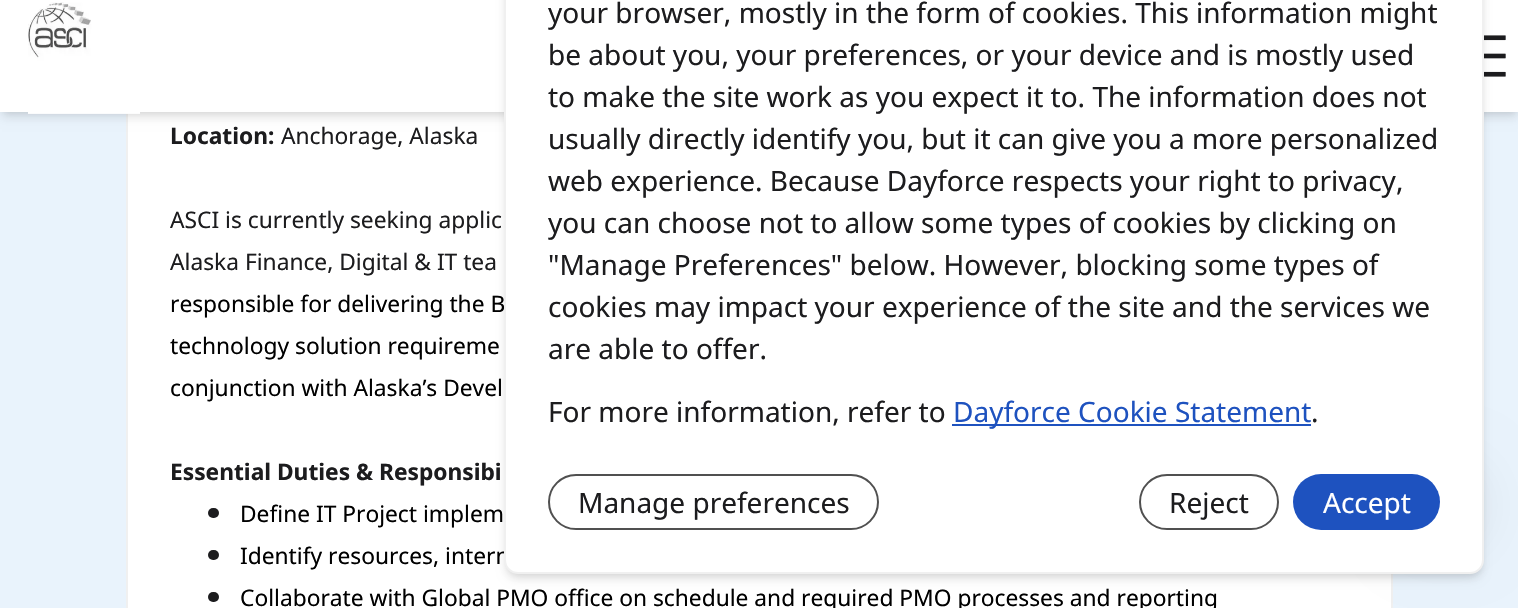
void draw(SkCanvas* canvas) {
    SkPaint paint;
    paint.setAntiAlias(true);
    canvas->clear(0xFFE9F3FC);
    paint.setColor(0xFFFFFFFF);
    canvas->drawRect(SkRect::MakeXYWH(128, 112, 1263, 496), paint);
    paint.setStyle(SkPaint::kStroke_Style);
    paint.setStrokeWidth(2);
    paint.setColor(0xFFF0F0F0);
    canvas->drawRect(SkRect::MakeXYWH(127, -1, 1265, 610), paint);
    paint.setStyle(SkPaint::kFill_Style);
    paint.setColor(0x1A000000);
    paint.setMaskFilter(SkMaskFilter::MakeBlur(kNormal_SkBlurStyle, 3.5f));
    canvas->drawRect(SkRect::MakeXYWH(4, 7, 1512, 105), paint);
    paint.setMaskFilter(nullptr);
    paint.setMaskFilter(SkMaskFilter::MakeBlur(kNormal_SkBlurStyle, 5));
    canvas->drawRect(SkRect::MakeXYWH(2, 9, 1515, 108), paint);
    paint.setMaskFilter(nullptr);
    paint.setColor(0xFFFFFFFF);
    canvas->drawRect(SkRect::MakeXYWH(0, 0, 1518, 112), paint);
    canvas->drawImageRect(SkImages::DeferredFromEncodedData(SkData::MakeFromFileName("img2.png")), SkRect::MakeXYWH(1484, 35, 22, 42), SkSamplingOptions());
    paint.setColor(0x1A000000);
    paint.setMaskFilter(SkMaskFilter::MakeBlur(kNormal_SkBlurStyle, 3.5f));
    canvas->drawRoundRect(SkRect::MakeXYWH(508, -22, 973, 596), 11, 11, paint);
    paint.setMaskFilter(nullptr);
    paint.setMaskFilter(SkMaskFilter::MakeBlur(kNormal_SkBlurStyle, 5));
    canvas->drawRoundRect(SkRect::MakeXYWH(506, -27, 976, 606), 12, 12, paint);
    paint.setMaskFilter(nullptr);
    SkFont font1(fontMgr->matchFamilyStyle("Noto Sans", SkFontStyle::Normal()), 22.75f);
    font1.setSubpixel(true);
    paint.setColor(0xFF000000);
    canvas->drawString("responsible for delivering the B", 170, 312, font1, paint);
    canvas->drawString("Identify resources, intern", 240, 564, font1, paint);
    paint.setColor(0x0D000000);
    paint.setMaskFilter(SkMaskFilter::MakeBlur(kNormal_SkBlurStyle, 24.5f));
    canvas->drawRoundRect(SkRect::MakeXYWH(1393, 457, 98, 98), 49, 49, paint);
    paint.setMaskFilter(nullptr);
    paint.setColor(0xFFFFFFFF);
    canvas->drawRoundRect(SkRect::MakeXYWH(505, -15, 978, 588), 13, 13, paint);
    paint.setStyle(SkPaint::kStroke_Style);
    paint.setColor(0xFFF0F0F0);
    canvas->drawRoundRect(SkRect::MakeXYWH(505, -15, 978, 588), 13, 13, paint);
    SkFont font2(fontMgr->matchFamilyStyle("Noto Sans", SkFontStyle::Normal()), 28);
    font2.setSubpixel(true);
    paint.setStyle(SkPaint::kFill_Style);
    paint.setColor(0xFF1C1C1E);
    canvas->drawString("your browser, mostly in the form of cookies. This information might", 548, 23, font2, paint);
    canvas->drawString("be about you, your preferences, or your device and is mostly used", 548, 65, font2, paint);
    canvas->drawString("to make the site work as you expect it to. The information does not", 548, 107, font2, paint);
    canvas->drawString("usually directly identify you, but it can give you a more personalized", 548, 149, font2, paint);
    canvas->drawString("web experience. Because Dayforce respects your right to privacy,", 548, 191, font2, paint);
    canvas->drawString("you can choose not to allow some types of cookies by clicking on", 548, 233, font2, paint);
    canvas->drawString("\"Manage Preferences\" below. However, blocking some types of", 548, 275, font2, paint);
    canvas->drawString("cookies may impact your experience of the site and the services we", 548, 317, font2, paint);
    canvas->drawString("are able to offer.", 548, 359, font2, paint);
    canvas->drawString("For more information, refer to", 548, 422, font2, paint);
    paint.setColor(0xFF1E52BF);
    canvas->drawRect(SkRect::MakeXYWH(952, 424, 359, 2), paint);
    canvas->drawString("Dayforce Cookie Statement", 953, 422, font2, paint);
    paint.setColor(0xFF1C1C1E);
    canvas->drawString(".", 1311, 422, font2, paint);
    paint.setStyle(SkPaint::kStroke_Style);
    paint.setColor(0xFF505050);
    canvas->drawRoundRect(SkRect::MakeXYWH(549, 475, 329, 54), 27, 27, paint);
    paint.setStyle(SkPaint::kFill_Style);
    paint.setColor(0xFF1C1C1E);
    canvas->drawString("Manage preferences", 578, 513, font2, paint);
    paint.setStyle(SkPaint::kStroke_Style);
    paint.setColor(0xFF505050);
    canvas->drawRoundRect(SkRect::MakeXYWH(1140, 475, 138, 54), 27, 27, paint);
    paint.setStyle(SkPaint::kFill_Style);
    paint.setColor(0xFF1C1C1E);
    canvas->drawString("Reject", 1169, 513, font2, paint);
    paint.setColor(0xFF1E52BF);
    canvas->drawRoundRect(SkRect::MakeXYWH(1293, 474, 147, 56), 28, 28, paint);
    paint.setColor(0xFFFFFFFF);
    canvas->drawString("Accept", 1323, 513, font2, paint);
    canvas->drawImageRect(SkImages::DeferredFromEncodedData(SkData::MakeFromFileName("img1.png")), SkRect::MakeXYWH(28, 2, 112, 112), SkSamplingOptions());
    SkFont font3(fontMgr->matchFamilyStyle("Noto Sans", SkFontStyle::Bold()), 22.75f);
    font3.setSubpixel(true);
    paint.setColor(0xFF1C1C1E);
    canvas->drawString("Location:", 170, 144, font3, paint);
    canvas->drawString("Anchorage, Alaska", 281, 144, font1, paint);
    canvas->drawString("ASCI is currently seeking applic", 170, 228, font1, paint);
    canvas->drawString("Alaska Finance, Digital & IT tea", 170, 270, font1, paint);
    paint.setColor(0xFF000000);
    canvas->drawString("technology solution requireme", 170, 354, font1, paint);
    canvas->drawString("conjunction with Alaska’s Devel", 170, 396, font1, paint);
    paint.setColor(0xFF1C1C1E);
    canvas->drawString("Essential Duties & Responsibi", 170, 480, font3, paint);
    canvas->drawRoundRect(SkRect::MakeXYWH(208, 508, 11, 10), 5, 5, paint);
    paint.setColor(0xFF000000);
    canvas->drawString("Define IT Project implem", 240, 522, font1, paint);
    paint.setColor(0xFF1C1C1E);
    canvas->drawRoundRect(SkRect::MakeXYWH(208, 550, 11, 10), 5, 5, paint);
    canvas->drawRoundRect(SkRect::MakeXYWH(208, 592, 11, 10), 5, 5, paint);
    paint.setColor(0xFF000000);
    canvas->drawString("Collaborate with Global PMO office on schedule and required PMO processes and reporting", 240, 606, font1, paint);
}
